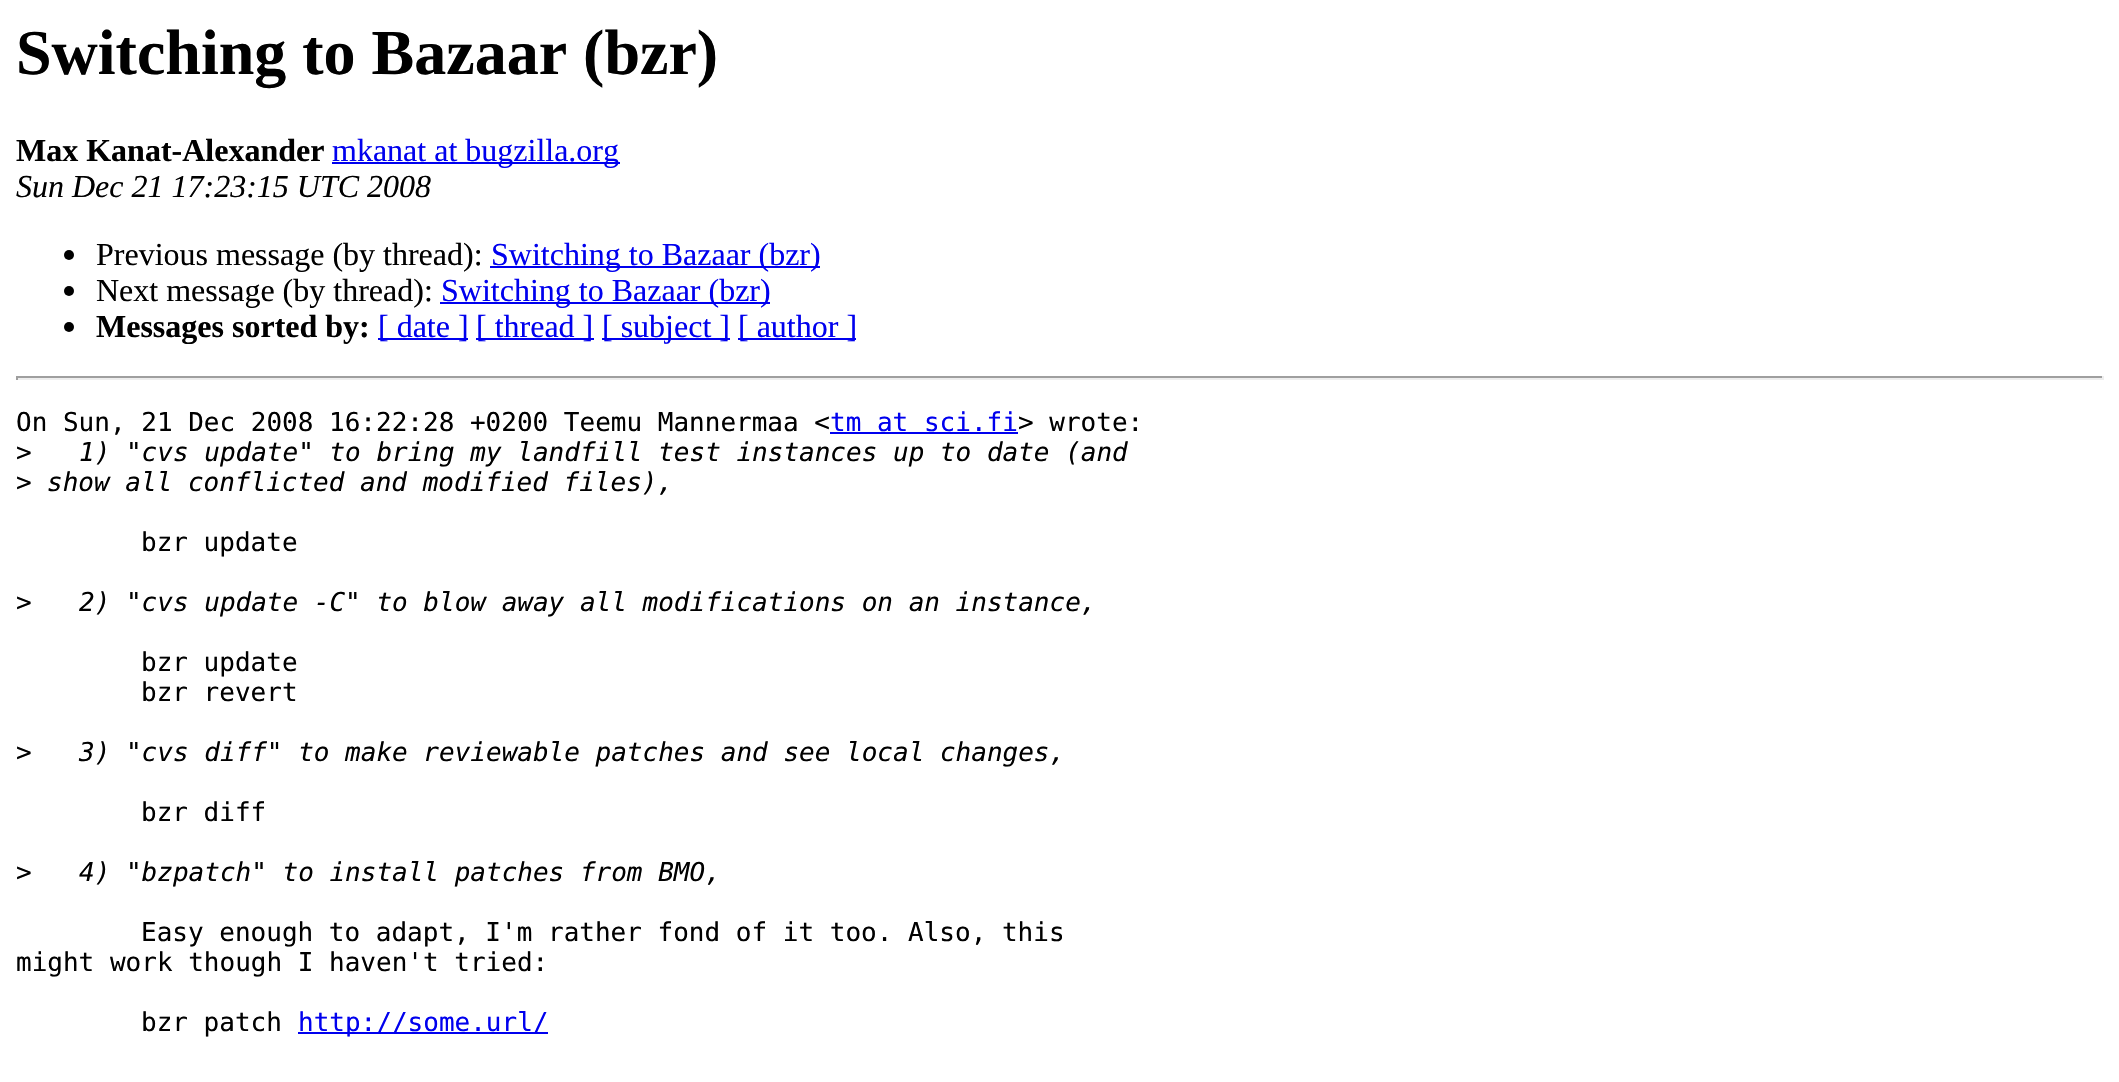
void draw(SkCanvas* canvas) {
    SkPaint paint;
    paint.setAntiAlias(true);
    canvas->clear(0xFFFFFFFF);
    SkFont font1(fontMgr->matchFamilyStyle("Liberation Serif", SkFontStyle::Bold()), 64);
    font1.setSubpixel(true);
    paint.setColor(0xFF000000);
    canvas->drawString("Switching to Bazaar (bzr)", 16, 74, font1, paint);
    SkFont font2(fontMgr->matchFamilyStyle("Liberation Serif", SkFontStyle::Bold()), 32);
    font2.setSubpixel(true);
    canvas->drawString("Max Kanat-Alexander", 16, 161, font2, paint);
    paint.setColor(0xFF0000EE);
    canvas->drawRect(SkRect::MakeXYWH(332, 162, 288, 2), paint);
    SkFont font3(fontMgr->matchFamilyStyle("Liberation Serif", SkFontStyle::Normal()), 32);
    font3.setSubpixel(true);
    canvas->drawString("mkanat at bugzilla.org", 332, 161, font3, paint);
    SkFont font4(fontMgr->matchFamilyStyle("Liberation Serif", SkFontStyle::Italic()), 32);
    font4.setSubpixel(true);
    paint.setColor(0xFF000000);
    canvas->drawString("Sun Dec 21 17:23:15 UTC 2008", 16, 197, font4, paint);
    canvas->drawCircle(69, 255, 5, paint);
    canvas->drawString("Previous message (by thread):", 96, 265, font3, paint);
    paint.setColor(0xFF0000EE);
    canvas->drawRect(SkRect::MakeXYWH(490, 266, 330, 2), paint);
    canvas->drawString("Switching to Bazaar (bzr)", 491, 265, font3, paint);
    paint.setColor(0xFF000000);
    canvas->drawCircle(69, 291, 5, paint);
    canvas->drawString("Next message (by thread):", 96, 301, font3, paint);
    paint.setColor(0xFF0000EE);
    canvas->drawRect(SkRect::MakeXYWH(440, 302, 330, 2), paint);
    canvas->drawString("Switching to Bazaar (bzr)", 441, 301, font3, paint);
    paint.setColor(0xFF000000);
    canvas->drawCircle(69, 327, 5, paint);
    canvas->drawString("Messages sorted by:", 96, 337, font2, paint);
    paint.setColor(0xFF0000EE);
    canvas->drawRect(SkRect::MakeXYWH(378, 338, 90, 2), paint);
    canvas->drawString("[ date ]", 378, 337, font3, paint);
    canvas->drawRect(SkRect::MakeXYWH(476, 338, 118, 2), paint);
    canvas->drawString("[ thread ]", 476, 337, font3, paint);
    canvas->drawRect(SkRect::MakeXYWH(602, 338, 128, 2), paint);
    canvas->drawString("[ subject ]", 602, 337, font3, paint);
    canvas->drawRect(SkRect::MakeXYWH(738, 338, 118, 2), paint);
    canvas->drawString("[ author ]", 738, 337, font3, paint);
    paint.setColor(0xFF9F9F9F);
    canvas->drawRect(SkRect::MakeXYWH(16, 376, 2088, 2), paint);
    paint.setColor(0xFFEEEEEE);
    canvas->drawRect(SkRect::MakeXYWH(2102, 376, 2, 4), paint);
    canvas->drawRect(SkRect::MakeXYWH(16, 378, 2088, 2), paint);
    paint.setColor(0xFF9F9F9F);
    canvas->drawRect(SkRect::MakeXYWH(16, 376, 2, 4), paint);
    SkFont font5(fontMgr->matchFamilyStyle("DejaVu Sans Mono", SkFontStyle::Normal()), 26);
    font5.setSubpixel(true);
    paint.setColor(0xFF000000);
    canvas->drawString("On Sun, 21 Dec 2008 16:22:28 +0200 Teemu Mannermaa <", 16, 431, font5, paint);
    paint.setColor(0xFF0000EE);
    canvas->drawString("tm at sci.fi", 830, 431, font5, paint);
    canvas->drawRect(SkRect::MakeXYWH(830, 432, 188, 2), paint);
    paint.setColor(0xFF000000);
    canvas->drawString("> wrote:", 1018, 431, font5, paint);
    canvas->drawString(">", 16, 461, font5, paint);
    SkFont font6(fontMgr->matchFamilyStyle("DejaVu Sans Mono", SkFontStyle::Italic()), 26);
    font6.setSubpixel(true);
    canvas->drawString("1) \"cvs update\" to bring my landfill test instances up to date (and", 79, 461, font6, paint);
    canvas->drawString(">", 16, 491, font5, paint);
    canvas->drawString("show all conflicted and modified files),", 47, 491, font6, paint);
    canvas->drawString("bzr update", 141, 551, font5, paint);
    canvas->drawString(">", 16, 611, font5, paint);
    canvas->drawString("2) \"cvs update -C\" to blow away all modifications on an instance,", 79, 611, font6, paint);
    canvas->drawString("bzr update", 141, 671, font5, paint);
    canvas->drawString("bzr revert", 141, 701, font5, paint);
    canvas->drawString(">", 16, 761, font5, paint);
    canvas->drawString("3) \"cvs diff\" to make reviewable patches and see local changes,", 79, 761, font6, paint);
    canvas->drawString("bzr diff", 141, 821, font5, paint);
    canvas->drawString(">", 16, 881, font5, paint);
    canvas->drawString("4) \"bzpatch\" to install patches from BMO,", 79, 881, font6, paint);
    canvas->drawString("Easy enough to adapt, I'm rather fond of it too. Also, this", 141, 941, font5, paint);
    canvas->drawString("might work though I haven't tried:", 16, 971, font5, paint);
    canvas->drawString("bzr patch", 141, 1031, font5, paint);
    paint.setColor(0xFF0000EE);
    canvas->drawRect(SkRect::MakeXYWH(298, 1032, 250, 2), paint);
    canvas->drawString("http://some.url/", 298, 1031, font5, paint);
}
